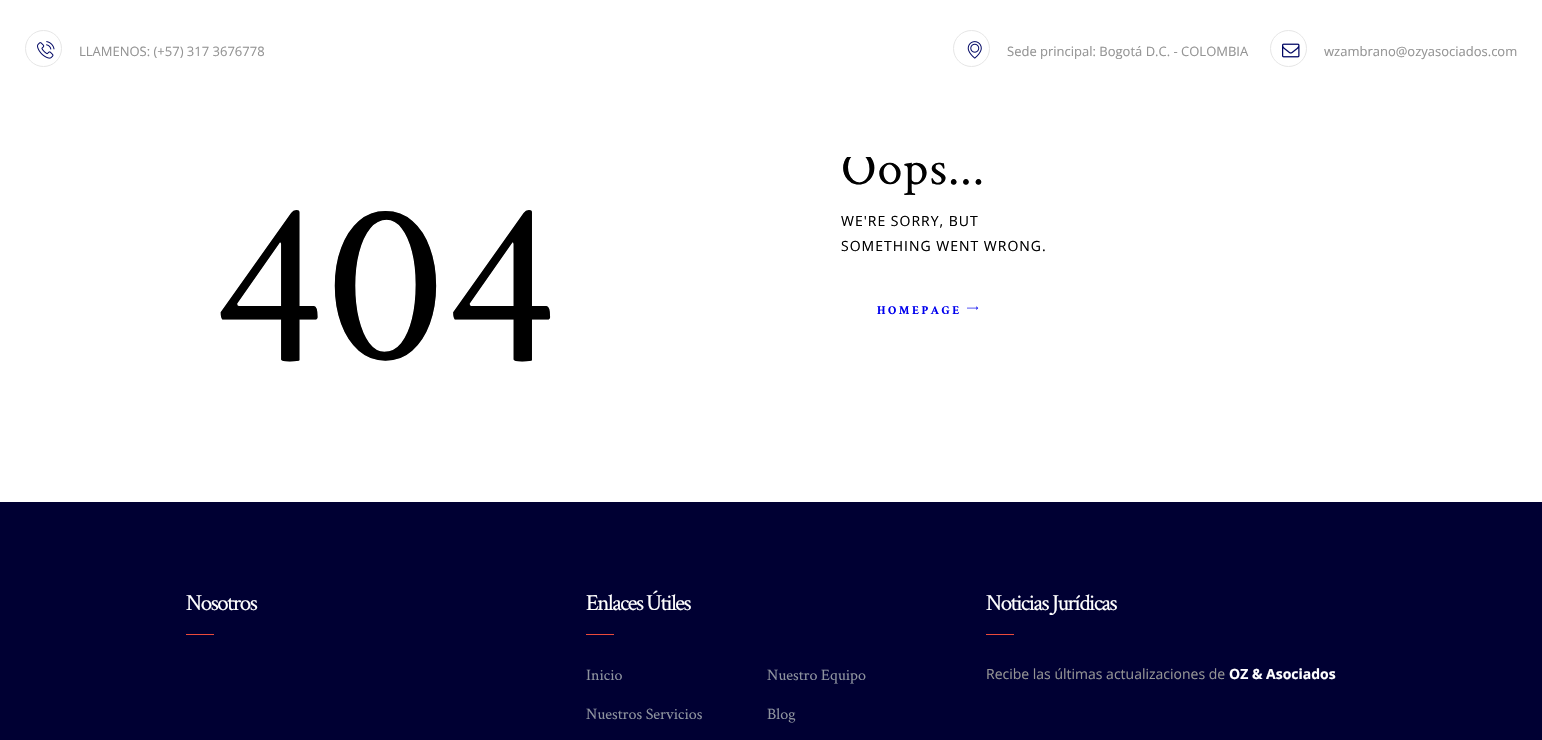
void draw(SkCanvas* canvas) {
    SkPaint paint;
    paint.setAntiAlias(true);
    auto spacedText = [&](const char* s, float x, float y, const SkFont& font, const SkPaint& ink, float letter, float word) {
        std::vector<SkGlyphID> glyphs(font.countText(s, strlen(s), SkTextEncoding::kUTF8));
        std::vector<float> xs(glyphs.size());
        font.textToGlyphs(s, strlen(s), SkTextEncoding::kUTF8, glyphs);
        font.getXPos(glyphs, xs, x);
        float extra = 0;
        for (size_t i = 0; i < glyphs.size(); i++) {
            xs[i] += extra;
            extra += letter + word * (glyphs[i] == font.unicharToGlyph(' '));
        }
        canvas->drawTextBlob(SkTextBlob::MakeFromPosHGlyphs(glyphs, xs, y, font), 0, 0, ink);
    };
    canvas->clear(0xFFFFFFFF);
    canvas->drawImageRect(SkImages::DeferredFromEncodedData(SkData::MakeFromFileName("img1.png")), SkRect::MakeXYWH(37, 41, 18, 18), SkSamplingOptions());
    paint.setStyle(SkPaint::kStroke_Style);
    paint.setStrokeWidth(1);
    paint.setColor(0xFFE6E6E6);
    canvas->drawCircle(43.5f, 48.5f, 18, paint);
    SkFont font1(fontMgr->matchFamilyStyle("Open Sans", SkFontStyle::Normal()), 13);
    font1.setSubpixel(true);
    paint.setStyle(SkPaint::kFill_Style);
    paint.setColor(0xFF949494);
    canvas->drawString("LLAMENOS: (+57) 317 3676778", 79, 56, font1, paint);
    canvas->drawImageRect(SkImages::DeferredFromEncodedData(SkData::MakeFromFileName("img2.png")), SkRect::MakeXYWH(967, 41, 15, 18), SkSamplingOptions());
    paint.setStyle(SkPaint::kStroke_Style);
    paint.setColor(0xFFE6E6E6);
    canvas->drawCircle(971.5f, 48.5f, 18, paint);
    paint.setStyle(SkPaint::kFill_Style);
    paint.setColor(0xFF949494);
    canvas->drawString("Sede principal: Bogotá D.C. - COLOMBIA", 1007, 56, font1, paint);
    canvas->drawImageRect(SkImages::DeferredFromEncodedData(SkData::MakeFromFileName("img3.png")), SkRect::MakeXYWH(1282, 43, 18, 15), SkSamplingOptions());
    paint.setStyle(SkPaint::kStroke_Style);
    paint.setColor(0xFFE6E6E6);
    canvas->drawCircle(1288.5f, 48.5f, 18, paint);
    paint.setStyle(SkPaint::kFill_Style);
    paint.setColor(0xFF949494);
    canvas->drawString("wzambrano@ozyasociados.com", 1324, 56, font1, paint);
    SkFont font2(fontMgr->matchFamilyStyle("Crimson Text", SkFontStyle::Normal()), 50);
    font2.setSubpixel(true);
    paint.setColor(0xFF000000);
    spacedText("Oops...", 841, 184, font2, paint, 1, 0);
    paint.setColor(0xFFFFFFFF);
    canvas->drawRect(SkRect::MakeXYWH(847, 151, 24, 6), paint);
    SkFont font3(fontMgr->matchFamilyStyle("Crimson Text", SkFontStyle::Normal()), 238);
    font3.setSubpixel(true);
    paint.setColor(0xFF000000);
    canvas->drawString("404", 213, 360, font3, paint);
    SkFont font4(fontMgr->matchFamilyStyle("Open Sans", SkFontStyle::Normal()), 14);
    font4.setSubpixel(true);
    spacedText("WE'RE SORRY, BUT", 841, 226, font4, paint, 1, 0);
    spacedText("SOMETHING WENT WRONG.", 841, 251, font4, paint, 1, 0);
    SkFont font5(fontMgr->matchFamilyStyle("Crimson Text", SkFontStyle::Bold()), 12);
    font5.setSubpixel(true);
    paint.setColor(0xFF0000EE);
    spacedText("HOMEPAGE", 877, 314, font5, paint, 2.5f, 0);
    canvas->drawImageRect(SkImages::DeferredFromEncodedData(SkData::MakeFromFileName("img4.png")), SkRect::MakeXYWH(967, 306, 12, 4), SkSamplingOptions());
    paint.setColor(0xFF000033);
    canvas->drawRect(SkRect::MakeXYWH(0, 502, 1542, 238), paint);
    SkFont font6(fontMgr->matchFamilyStyle("Crimson Text", SkFontStyle::Normal()), 23);
    font6.setSubpixel(true);
    paint.setColor(0xFFFFFFFF);
    spacedText("Nosotros", 186, 610, font6, paint, -1.5f, 0);
    paint.setColor(0xFFEA4A3B);
    canvas->drawRect(SkRect::MakeXYWH(186, 634, 28, 1), paint);
    paint.setColor(0xFFFFFFFF);
    spacedText("Enlaces Útiles", 586, 610, font6, paint, -1.5f, 0);
    paint.setColor(0xFFEA4A3B);
    canvas->drawRect(SkRect::MakeXYWH(586, 634, 28, 1), paint);
    SkFont font7(fontMgr->matchFamilyStyle("Crimson Text", SkFontStyle::Normal()), 16);
    font7.setSubpixel(true);
    paint.setColor(0xFF8E939E);
    canvas->drawString("Inicio", 586, 680, font7, paint);
    canvas->drawString("Nuestro Equipo", 767, 680, font7, paint);
    canvas->drawString("Nuestros Servicios", 586, 719, font7, paint);
    canvas->drawString("Blog", 767, 719, font7, paint);
    paint.setColor(0xFFFFFFFF);
    spacedText("Noticias Jurídicas", 986, 610, font6, paint, -1.5f, 0);
    paint.setColor(0xFFEA4A3B);
    canvas->drawRect(SkRect::MakeXYWH(986, 634, 28, 1), paint);
    paint.setColor(0xFF949494);
    canvas->drawString("Recibe las últimas actualizaciones de", 986, 679, font4, paint);
    SkFont font8(fontMgr->matchFamilyStyle("Open Sans", SkFontStyle::Bold()), 14);
    font8.setSubpixel(true);
    paint.setColor(0xFFFFFFFF);
    canvas->drawString("OZ & Asociados", 1229, 679, font8, paint);
}
